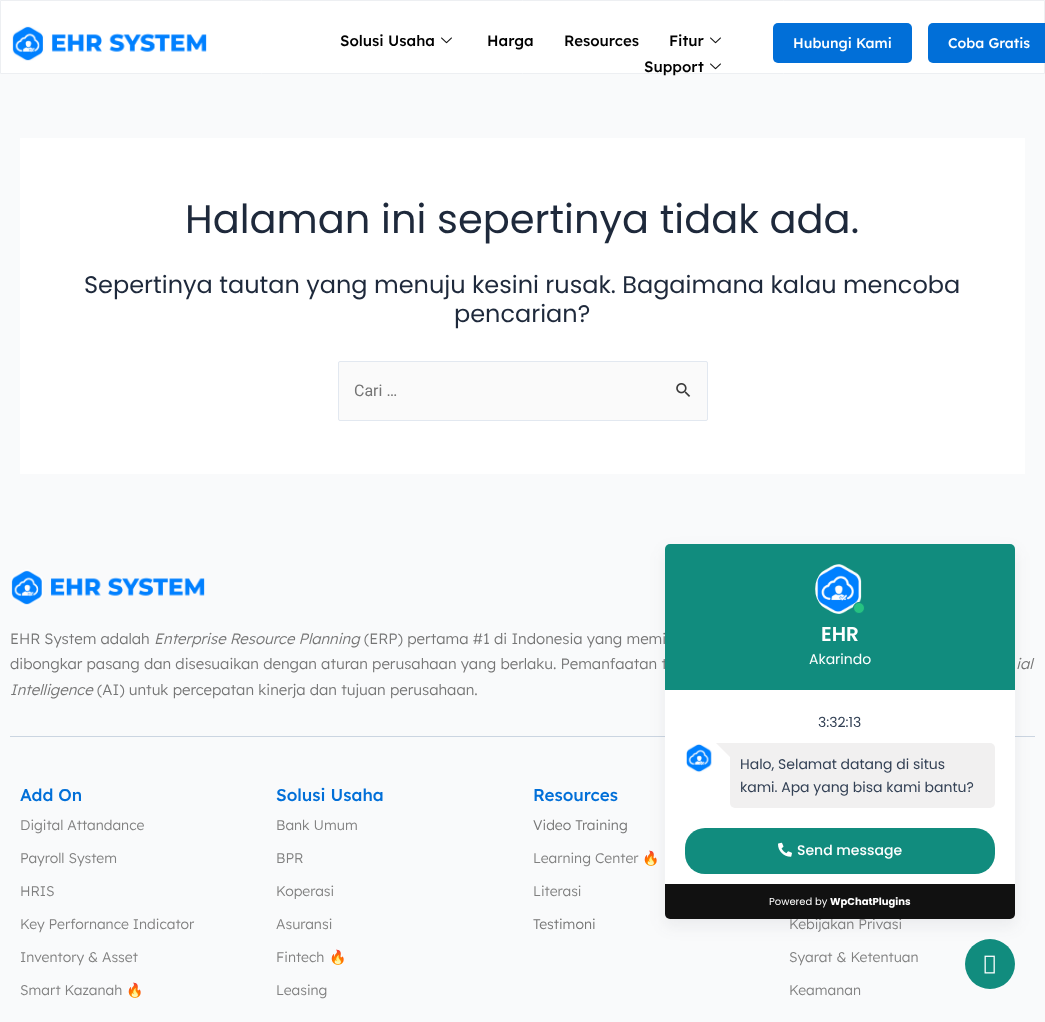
(async () => {
    const canvas = document.querySelector("canvas");
    canvas.width = 1045;
    canvas.height = 1022;
    const context = canvas.getContext("2d");
    context.miterLimit = 4;
    context.fontKerning = "normal";
    function write(s, x, y, font, color) {
        context.font = font;
        context.fillStyle = color;
        context.fillText(s, x, y);
    }
    function block(x, y, w, h, color) {
        context.fillStyle = color;
        context.fillRect(x, y, w, h);
    }
    function card(x, y, w, h, r, color) {
        context.fillStyle = color;
        context.beginPath();
        context.roundRect(x, y, w, h, r);
        context.fill();
    }
    async function photo(src, x, y, w, h) {
        const img = new Image();
        img.src = src;
        await img.decode();
        context.drawImage(img, x, y, w, h);
    }

    block(0, 0, 1045, 1022, "rgb(249, 250, 251)");
    context.fillStyle = "rgb(255, 255, 255)";
    context.beginPath();
    context.rect(0.5, 0.5, 1044, 73);
    context.fill();
    context.strokeStyle = "rgb(237, 239, 242)";
    context.stroke();
    await photo("media/1.png", 12, 26, 195, 35);
    write("Solusi Usaha", 340, 46, "500 15px Lexend", "rgb(0, 0, 0)");
    await photo("media/2.png", 441, 37, 11, 7);
    write("Harga", 487, 46, "500 15px Lexend", "rgb(0, 0, 0)");
    write("Resources", 564, 46, "500 15px Lexend", "rgb(0, 0, 0)");
    write("Fitur", 669, 46, "500 15px Lexend", "rgb(0, 0, 0)");
    await photo("media/2.png", 710, 37, 11, 7);
    write("Support", 644, 72, "500 15px Lexend", "rgb(0, 0, 0)");
    await photo("media/2.png", 710, 63, 11, 7);
    card(773, 23, 139, 40, 5, "rgb(1, 111, 216)");
    write("Hubungi Kami", 793, 48, "500 14px Lexend", "rgb(255, 255, 255)");
    card(928, 23, 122, 40, 5, "rgb(1, 111, 216)");
    write("Coba Gratis", 948, 48, "500 14px Lexend", "rgb(255, 255, 255)");
    block(20, 138, 1005, 336, "rgb(255, 255, 255)");
    write("Halaman ini sepertinya tidak ada.", 185, 233, "40px Poppins", "rgb(30, 41, 59)");
    write("Sepertinya tautan yang menuju kesini rusak. Bagaimana kalau mencoba", 84, 293, "24px Poppins", "rgb(30, 41, 59)");
    write("pencarian?", 454, 322, "24px Poppins", "rgb(30, 41, 59)");
    context.fillStyle = "rgb(250, 250, 250)";
    context.beginPath();
    context.roundRect(338.5, 361.5, 369, 59, 1.5);
    context.fill();
    context.strokeStyle = "rgb(226, 232, 240)";
    context.stroke();
    write("Cari …", 354, 396, "16px Roboto", "rgb(117, 117, 117)");
    await photo("media/3.png", 676, 383, 15, 14);
    await photo("media/4.png", 11, 569, 194, 37);
    write("EHR System adalah", 10, 644, "300 15px Lexend", "rgb(117, 117, 117)");
    write("Enterprise Resource Planning", 154, 644, "italic 300 15px Lexend", "rgb(117, 117, 117)");
    write("(ERP) pertama #1 di Indonesia yang memi", 364, 644, "300 15px Lexend", "rgb(117, 117, 117)");
    write("dibongkar pasang dan disesuaikan dengan aturan perusahaan yang berlaku. Pemanfaatan t", 10, 669, "300 15px Lexend", "rgb(117, 117, 117)");
    write("ial", 1016, 669, "italic 300 15px Lexend", "rgb(117, 117, 117)");
    write("Intelligence", 10, 695, "italic 300 15px Lexend", "rgb(117, 117, 117)");
    write("(AI) untuk percepatan kinerja dan tujuan perusahaan.", 97, 695, "300 15px Lexend", "rgb(117, 117, 117)");
    block(10, 736, 1025, 1, "rgb(203, 213, 225)");
    write("Add On", 20, 801, "500 17px Lexend", "rgb(1, 111, 216)");
    write("Digital Attandance", 20, 830, "300 14px Lexend", "rgb(128, 128, 128)");
    write("Payroll System", 20, 863, "300 14px Lexend", "rgb(128, 128, 128)");
    write("HRIS", 20, 896, "300 14px Lexend", "rgb(128, 128, 128)");
    write("Key Perfornance Indicator", 20, 929, "300 14px Lexend", "rgb(128, 128, 128)");
    write("Inventory & Asset", 20, 962, "300 14px Lexend", "rgb(128, 128, 128)");
    write("Smart Kazanah", 20, 995, "300 14px Lexend", "rgb(128, 128, 128)");
    write("🔥", 126, 995, "14px Noto Color Emoji", "rgb(128, 128, 128)");
    write("Solusi Usaha", 276, 801, "500 17px Lexend", "rgb(1, 111, 216)");
    write("Bank Umum", 276, 830, "300 14px Lexend", "rgb(128, 128, 128)");
    write("BPR", 276, 863, "300 14px Lexend", "rgb(128, 128, 128)");
    write("Koperasi", 276, 896, "300 14px Lexend", "rgb(128, 128, 128)");
    write("Asuransi", 276, 929, "300 14px Lexend", "rgb(128, 128, 128)");
    write("Fintech", 276, 962, "300 14px Lexend", "rgb(128, 128, 128)");
    write("🔥", 329, 962, "14px Noto Color Emoji", "rgb(128, 128, 128)");
    write("Leasing", 276, 995, "300 14px Lexend", "rgb(128, 128, 128)");
    write("Resources", 533, 801, "500 17px Lexend", "rgb(1, 111, 216)");
    write("Video Training", 533, 830, "300 14px Lexend", "rgb(117, 117, 117)");
    write("Learning Center", 533, 863, "300 14px Lexend", "rgb(128, 128, 128)");
    write("🔥", 642, 863, "14px Noto Color Emoji", "rgb(128, 128, 128)");
    write("Literasi", 533, 896, "300 14px Lexend", "rgb(128, 128, 128)");
    write("Testimoni", 533, 929, "300 14px Lexend", "rgb(117, 117, 117)");
    write("Kebijakan Privasi", 789, 929, "300 14px Lexend", "rgb(128, 128, 128)");
    write("Syarat & Ketentuan", 789, 962, "300 14px Lexend", "rgb(128, 128, 128)");
    write("Keamanan", 789, 995, "300 14px Lexend", "rgb(128, 128, 128)");
    context.fillStyle = "rgba(55, 62, 70, 0.07)";
    context.filter = "blur(7.5px)";
    context.beginPath();
    context.roundRect(664, 550, 352, 377, 6);
    context.fill();
    context.filter = "none";
    card(665, 544, 350, 375, 5, "rgb(255, 255, 255)");
    context.fillStyle = "rgb(17, 140, 126)";
    context.beginPath();
    context.roundRect(665, 544, 350, 146, [5, 5, 0, 0]);
    context.fill();
    await photo("media/5.png", 815, 564, 47, 50);
    context.fillStyle = "rgb(38, 194, 129)";
    context.beginPath();
    context.arc(859, 608, 5.5, 0, Math.PI * 2);
    context.fill();
    context.strokeStyle = "rgb(17, 140, 126)";
    context.stroke();
    write("EHR", 821, 641, "600 20px Poppins", "rgb(255, 255, 255)");
    write("Akarindo", 809, 664, "14px Poppins", "rgb(255, 255, 255)");
    write("3:32:13", 818, 727, "14px Poppins", "rgb(51, 65, 85)");
    await photo("media/6.png", 686, 744, 26, 29);
    context.fillStyle = "rgb(241, 240, 240)";
    context.beginPath();
    context.roundRect(730, 743, 265, 65, [0, 5, 5, 5]);
    context.fill();
    context.beginPath();
    context.moveTo(731, 743);
    context.lineTo(731, 758);
    context.lineTo(716, 743);
    context.closePath();
    context.fill();
    write("Halo, Selamat datang di situs", 740, 769, "14px Poppins", "rgb(51, 65, 85)");
    write("kami. Apa yang bisa kami bantu?", 740, 792, "14px Poppins", "rgb(51, 65, 85)");
    card(685, 828, 310, 46, 20, "rgb(17, 140, 126)");
    await photo("media/7.png", 778, 842, 14, 15);
    write("Send message", 797, 855, "500 14px Poppins", "rgb(255, 255, 255)");
    context.fillStyle = "rgb(17, 17, 17)";
    context.beginPath();
    context.roundRect(665, 884, 350, 35, [0, 0, 5, 5]);
    context.fill();
    write("Powered by", 769, 905, "10px Poppins", "rgb(255, 255, 255)");
    write("WpChatPlugins", 830, 905, "bold 10px Poppins", "rgb(255, 255, 255)");
    context.fillStyle = "rgb(17, 140, 126)";
    context.beginPath();
    context.arc(990, 964, 25, 0, Math.PI * 2);
    context.fill();
    await photo("media/8.png", 984, 955, 11, 19);
})();
